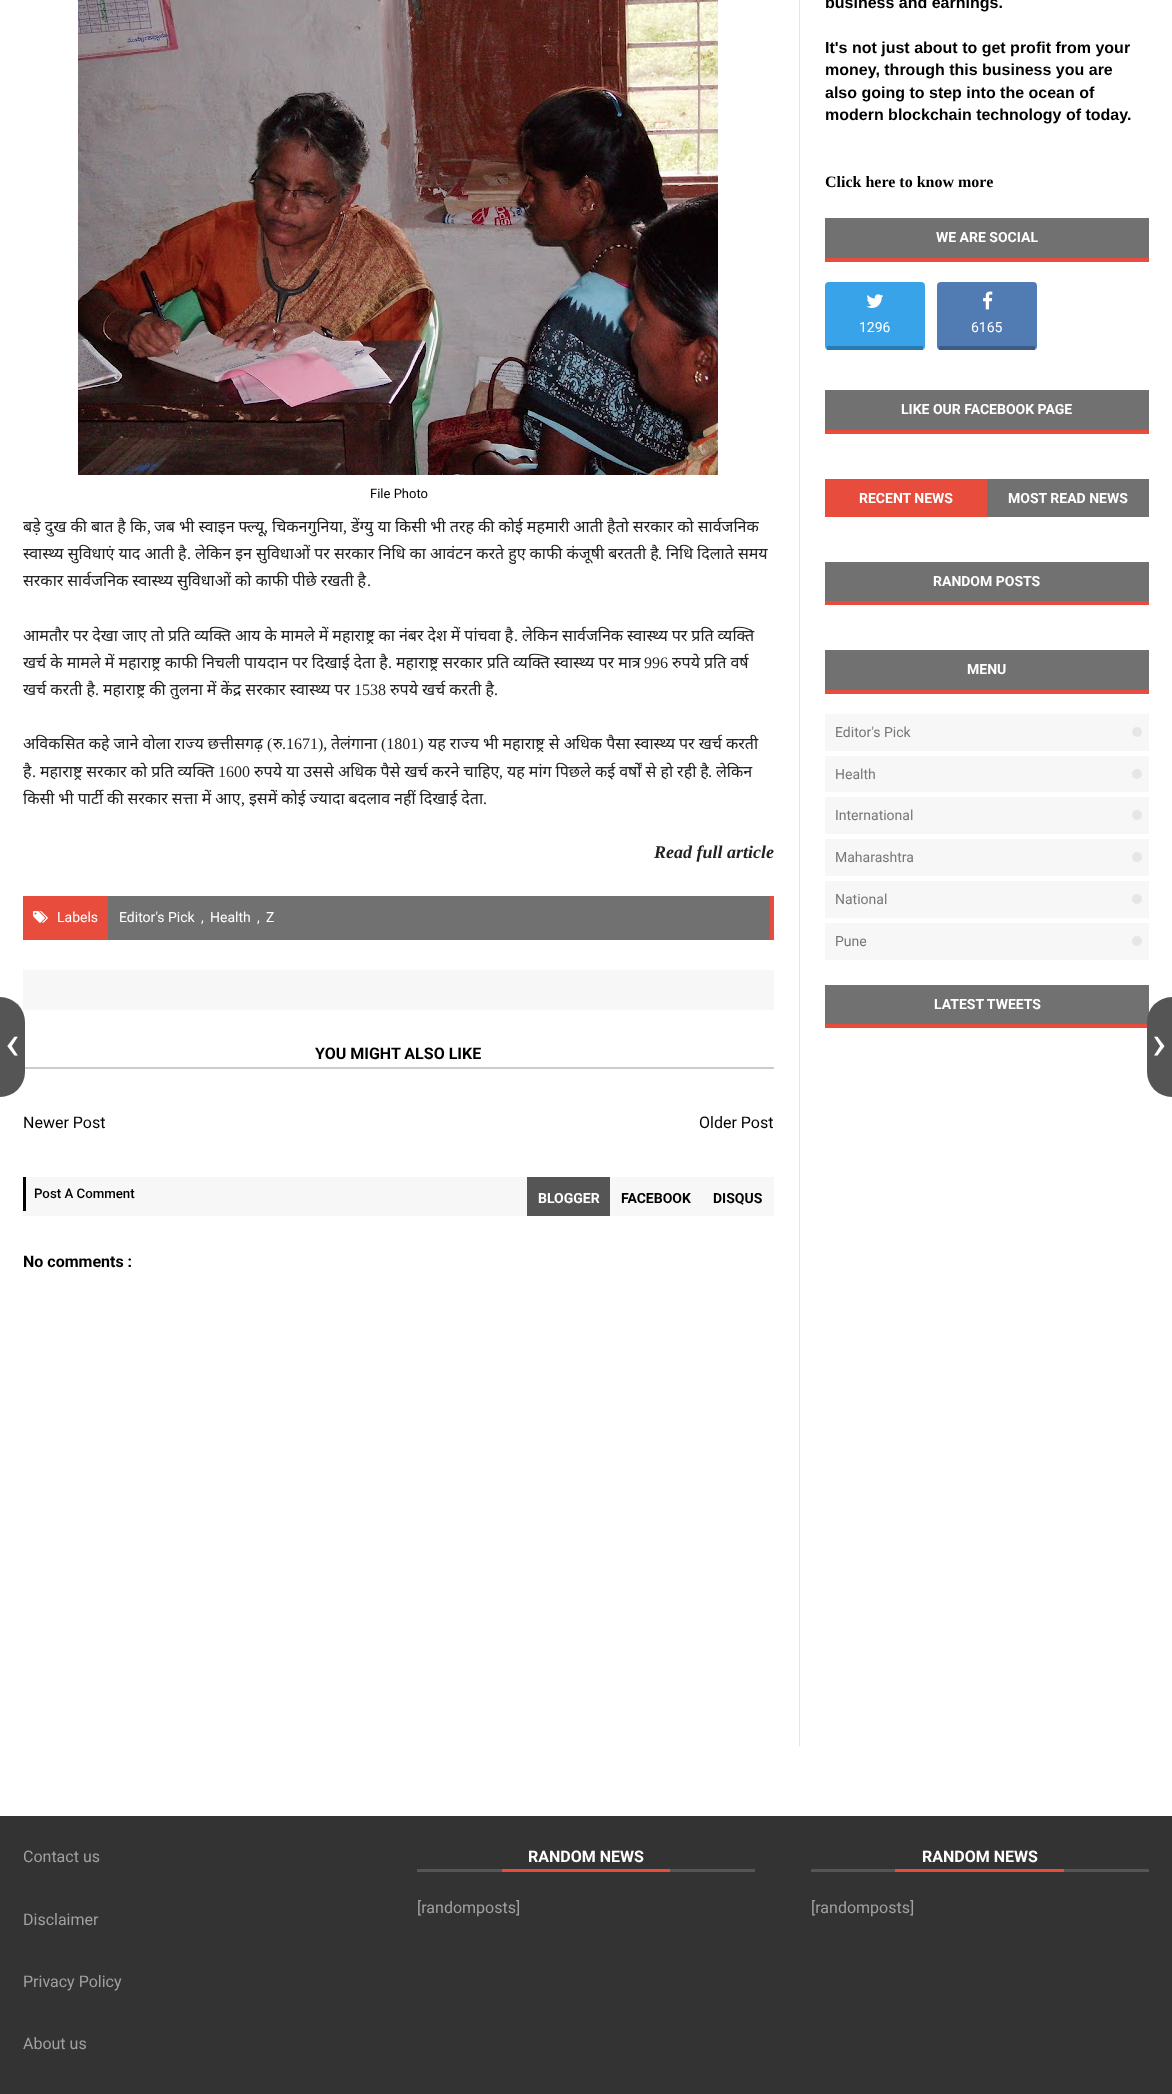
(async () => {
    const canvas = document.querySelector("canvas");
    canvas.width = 1172;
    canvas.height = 2094;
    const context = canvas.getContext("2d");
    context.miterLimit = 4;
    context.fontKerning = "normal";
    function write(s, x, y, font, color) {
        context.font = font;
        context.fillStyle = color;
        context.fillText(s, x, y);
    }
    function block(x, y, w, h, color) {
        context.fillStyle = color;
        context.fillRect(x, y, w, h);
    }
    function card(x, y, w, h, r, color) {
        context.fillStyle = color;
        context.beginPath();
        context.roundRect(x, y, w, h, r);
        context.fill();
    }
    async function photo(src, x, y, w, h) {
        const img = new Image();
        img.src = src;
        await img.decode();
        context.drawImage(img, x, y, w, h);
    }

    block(0, 0, 1172, 2094, "rgb(255, 255, 255)");
    block(799, 0, 1, 1746, "rgb(230, 230, 230)");
    write("business and earnings.", 825, 8, "bold 16px Liberation Sans", "rgb(0, 0, 0)");
    write("It's not just about to get profit from your", 825, 53, "bold 16px Liberation Sans", "rgb(0, 0, 0)");
    write("money, through this business you are", 825, 75, "bold 16px Liberation Sans", "rgb(0, 0, 0)");
    write("also going to step into the ocean of", 825, 98, "bold 16px Liberation Sans", "rgb(0, 0, 0)");
    write("modern blockchain technology of today.", 825, 120, "bold 16px Liberation Sans", "rgb(0, 0, 0)");
    write("Click here to know more", 825, 187, "bold 16px Liberation Serif", "rgb(0, 0, 0)");
    block(825, 218, 324, 40, "rgb(113, 113, 113)");
    block(825, 258, 324, 4, "rgb(231, 76, 60)");
    write("WE ARE SOCIAL", 936, 242, "bold 14px Roboto", "rgb(255, 255, 255)");
    card(825, 282, 100, 68, 4, "rgb(56, 163, 233)");
    block(827, 346, 96, 4, "rgb(41, 123, 176)");
    await photo("media/1.png", 866, 294, 18, 14);
    write("1296", 859, 332, "14px Roboto", "rgb(255, 255, 255)");
    card(937, 282, 100, 68, 4, "rgb(80, 124, 179)");
    block(939, 346, 96, 4, "rgb(59, 92, 134)");
    await photo("media/2.png", 983, 291, 10, 19);
    write("6165", 971, 332, "14px Roboto", "rgb(255, 255, 255)");
    block(825, 390, 324, 40, "rgb(113, 113, 113)");
    block(825, 430, 324, 4, "rgb(231, 76, 60)");
    write("LIKE OUR FACEBOOK PAGE", 901, 414, "bold 14px Roboto", "rgb(255, 255, 255)");
    block(987, 479, 162, 38, "rgb(113, 113, 113)");
    block(825, 479, 162, 38, "rgb(231, 76, 60)");
    write("RECENT NEWS", 859, 503, "bold 14px Roboto", "rgb(255, 255, 255)");
    write("MOST READ NEWS", 1008, 503, "bold 14px Roboto", "rgb(255, 255, 255)");
    block(825, 562, 324, 39, "rgb(113, 113, 113)");
    block(825, 601, 324, 4, "rgb(231, 76, 60)");
    write("RANDOM POSTS", 933, 586, "bold 14px Roboto", "rgb(255, 255, 255)");
    block(825, 650, 324, 40, "rgb(113, 113, 113)");
    block(825, 690, 324, 4, "rgb(231, 76, 60)");
    write("MENU", 967, 674, "bold 14px Roboto", "rgb(255, 255, 255)");
    block(825, 714, 324, 37, "rgb(247, 247, 247)");
    write("Editor's Pick", 835, 737, "14px Roboto", "rgb(119, 119, 119)");
    context.fillStyle = "rgb(230, 230, 230)";
    context.beginPath();
    context.arc(1137, 732, 5, 0, Math.PI * 2);
    context.fill();
    block(825, 756, 324, 36, "rgb(247, 247, 247)");
    write("Health", 835, 779, "14px Roboto", "rgb(119, 119, 119)");
    context.fillStyle = "rgb(230, 230, 230)";
    context.beginPath();
    context.arc(1137, 774, 5, 0, Math.PI * 2);
    context.fill();
    block(825, 797, 324, 37, "rgb(247, 247, 247)");
    write("International", 835, 820, "14px Roboto", "rgb(119, 119, 119)");
    context.fillStyle = "rgb(230, 230, 230)";
    context.beginPath();
    context.arc(1137, 815, 5, 0, Math.PI * 2);
    context.fill();
    block(825, 839, 324, 37, "rgb(247, 247, 247)");
    write("Maharashtra", 835, 862, "14px Roboto", "rgb(119, 119, 119)");
    context.fillStyle = "rgb(230, 230, 230)";
    context.beginPath();
    context.arc(1137, 857, 5, 0, Math.PI * 2);
    context.fill();
    block(825, 881, 324, 37, "rgb(247, 247, 247)");
    write("National", 835, 904, "14px Roboto", "rgb(119, 119, 119)");
    context.fillStyle = "rgb(230, 230, 230)";
    context.beginPath();
    context.arc(1137, 899, 5, 0, Math.PI * 2);
    context.fill();
    block(825, 923, 324, 37, "rgb(247, 247, 247)");
    write("Pune", 835, 946, "14px Roboto", "rgb(119, 119, 119)");
    context.fillStyle = "rgb(230, 230, 230)";
    context.beginPath();
    context.arc(1137, 941, 5, 0, Math.PI * 2);
    context.fill();
    block(825, 985, 324, 39, "rgb(113, 113, 113)");
    block(825, 1024, 324, 4, "rgb(231, 76, 60)");
    write("LATEST TWEETS", 934, 1009, "bold 14px Roboto", "rgb(255, 255, 255)");
    await photo("media/3.png", 78, 0, 640, 475);
    write("File Photo", 370, 498, "13px Roboto", "rgb(0, 0, 0)");
    context.wordSpacing = "-0.1px";
    write("बड़े दुख की बात है कि", 23, 532, "16px Noto Sans", "rgb(34, 34, 34)");
    context.wordSpacing = "0px";
    write(",", 147, 532, "16px Liberation Serif", "rgb(34, 34, 34)");
    context.wordSpacing = "-0.1px";
    write("जब भी स्वाइन फ्ल्यू", 154, 532, "16px Noto Sans", "rgb(34, 34, 34)");
    context.wordSpacing = "0px";
    write(",", 264, 532, "16px Liberation Serif", "rgb(34, 34, 34)");
    write("चिकनगुनिया", 272, 532, "16px Noto Sans", "rgb(34, 34, 34)");
    write(",", 343, 532, "16px Liberation Serif", "rgb(34, 34, 34)");
    context.wordSpacing = "-0.1px";
    write("डेंग्यु या किसी भी तरह की कोई महमारी आती हैतो सरकार को सार्वजनिक", 351, 532, "16px Noto Sans", "rgb(34, 34, 34)");
    write("स्वास्थ्य सुविधाएं याद आती है", 23, 559, "16px Noto Sans", "rgb(34, 34, 34)");
    context.wordSpacing = "0px";
    write(".", 187, 559, "16px Liberation Serif", "rgb(34, 34, 34)");
    context.wordSpacing = "-0.1px";
    write("लेकिन इन सुविधाओं पर सरकार निधि का आवंटन करते हुए काफी कंजूषी बरतती है", 195, 559, "16px Noto Sans", "rgb(34, 34, 34)");
    write("निधि दिलाते समय", 666, 559, "16px Noto Sans", "rgb(34, 34, 34)");
    context.wordSpacing = "0px";
    write(".", 658, 559, "16px Liberation Serif", "rgb(34, 34, 34)");
    context.wordSpacing = "-0.2px";
    write("सरकार सार्वजनिक स्वास्थ्य सुविधाओं को काफी पीछे रखती है", 23, 586, "16px Noto Sans", "rgb(34, 34, 34)");
    context.wordSpacing = "0px";
    write(".", 367, 586, "16px Liberation Serif", "rgb(34, 34, 34)");
    context.wordSpacing = "-0.2px";
    write("आमतौर पर देखा जाए तो प्रति व्यक्ति आय के मामले में महाराष्ट्र का नंबर देश में पांचवा है", 23, 641, "16px Noto Sans", "rgb(34, 34, 34)");
    context.wordSpacing = "0px";
    write(".", 514, 641, "16px Liberation Serif", "rgb(34, 34, 34)");
    context.wordSpacing = "-0.2px";
    write("लेकिन सार्वजनिक स्वास्थ्य पर प्रति व्यक्ति", 522, 641, "16px Noto Sans", "rgb(34, 34, 34)");
    context.wordSpacing = "-0.1px";
    write("खर्च के मामले में महाराष्ट्र काफी निचली पायदान पर दिखाई देता है", 23, 668, "16px Noto Sans", "rgb(34, 34, 34)");
    context.wordSpacing = "0px";
    write(".", 388, 668, "16px Liberation Serif", "rgb(34, 34, 34)");
    context.wordSpacing = "-0.1px";
    write("महाराष्ट्र सरकार प्रति व्यक्ति स्वास्थ्य पर मात्र", 396, 668, "16px Noto Sans", "rgb(34, 34, 34)");
    context.wordSpacing = "0px";
    write("996", 644, 668, "16px Liberation Serif", "rgb(34, 34, 34)");
    context.wordSpacing = "-0.1px";
    write("रुपये प्रति वर्ष", 672, 668, "16px Noto Sans", "rgb(34, 34, 34)");
    write("खर्च करती है", 23, 695, "16px Noto Sans", "rgb(34, 34, 34)");
    context.wordSpacing = "0px";
    write(".", 95, 695, "16px Liberation Serif", "rgb(34, 34, 34)");
    context.wordSpacing = "-0.1px";
    write("महाराष्ट्र की तुलना में केंद्र सरकार स्वास्थ्य पर", 103, 695, "16px Noto Sans", "rgb(34, 34, 34)");
    context.wordSpacing = "0px";
    write("1538", 354, 695, "16px Liberation Serif", "rgb(34, 34, 34)");
    context.wordSpacing = "-0.1px";
    write("रुपये खर्च करती है", 390, 695, "16px Noto Sans", "rgb(34, 34, 34)");
    context.wordSpacing = "0px";
    write(".", 494, 695, "16px Liberation Serif", "rgb(34, 34, 34)");
    context.wordSpacing = "-0.1px";
    write("अविकसित कहे जाने वाेला राज्य छत्तीसगढ़", 23, 749, "16px Noto Sans", "rgb(34, 34, 34)");
    context.wordSpacing = "0px";
    write("(", 267, 749, "16px Liberation Serif", "rgb(34, 34, 34)");
    write("रु", 273, 749, "16px Noto Sans", "rgb(34, 34, 34)");
    write(".1671),", 282, 749, "16px Liberation Serif", "rgb(34, 34, 34)");
    write("तेलंगाना", 331, 749, "16px Noto Sans", "rgb(34, 34, 34)");
    write("(1801)", 381, 749, "16px Liberation Serif", "rgb(34, 34, 34)");
    context.wordSpacing = "-0.1px";
    write("यह राज्य भी महाराष्ट्र से अधिक पैसा स्वास्थ्य पर खर्च करती", 428, 749, "16px Noto Sans", "rgb(34, 34, 34)");
    context.wordSpacing = "0px";
    write("है", 23, 777, "16px Noto Sans", "rgb(34, 34, 34)");
    write(".", 32, 777, "16px Liberation Serif", "rgb(34, 34, 34)");
    context.wordSpacing = "-0.1px";
    write("महाराष्ट्र सरकार को प्रति व्यक्ति", 40, 777, "16px Noto Sans", "rgb(34, 34, 34)");
    context.wordSpacing = "0px";
    write("1600", 218, 777, "16px Liberation Serif", "rgb(34, 34, 34)");
    context.wordSpacing = "-0.1px";
    write("रुपये या उससे अधिक पैसे खर्च करने चाहिए", 254, 777, "16px Noto Sans", "rgb(34, 34, 34)");
    context.wordSpacing = "0px";
    write(",", 499, 777, "16px Liberation Serif", "rgb(34, 34, 34)");
    context.wordSpacing = "-0.1px";
    write("यह मांग पिछले कई वर्षों से हो रही है", 507, 777, "16px Noto Sans", "rgb(34, 34, 34)");
    context.wordSpacing = "0px";
    write(".", 708, 777, "16px Liberation Serif", "rgb(34, 34, 34)");
    write("लेकिन", 716, 777, "16px Noto Sans", "rgb(34, 34, 34)");
    context.wordSpacing = "-0.2px";
    write("किसी भी पार्टी की सरकार सत्ता में आए", 23, 804, "16px Noto Sans", "rgb(34, 34, 34)");
    context.wordSpacing = "0px";
    write(",", 241, 804, "16px Liberation Serif", "rgb(34, 34, 34)");
    context.wordSpacing = "-0.2px";
    write("इसमें कोई ज्यादा बदलाव नहीं दिखाई देता", 249, 804, "16px Noto Sans", "rgb(34, 34, 34)");
    context.wordSpacing = "0px";
    write(".", 483, 804, "16px Liberation Serif", "rgb(34, 34, 34)");
    write("Read full article", 654, 858, "italic bold 18px Liberation Serif", "rgb(34, 34, 34)");
    block(108, 896, 662, 44, "rgb(113, 113, 113)");
    block(770, 896, 4, 44, "rgb(231, 76, 60)");
    block(23, 896, 85, 44, "rgb(231, 76, 60)");
    await photo("media/4.png", 33, 911, 15, 12);
    write("Labels", 57, 922, "14px Roboto", "rgb(255, 255, 255)");
    write("Editor's Pick", 119, 922, "14px Roboto", "rgb(255, 255, 255)");
    write(",", 201, 922, "14px Roboto", "rgb(255, 255, 255)");
    write("Health", 210, 922, "14px Roboto", "rgb(255, 255, 255)");
    write(",", 257, 922, "14px Roboto", "rgb(255, 255, 255)");
    write("Z", 266, 922, "14px Roboto", "rgb(255, 255, 255)");
    block(23, 970, 751, 40, "rgb(247, 247, 247)");
    block(23, 1067, 751, 2, "rgb(204, 204, 204)");
    context.fillStyle = "rgb(85, 85, 85)";
    context.beginPath();
    context.roundRect(0, 997, 25, 100, [0, 25, 25, 0]);
    context.fill();
    write("‹", 5, 1059, "48px Roboto", "rgb(255, 255, 255)");
    context.fillStyle = "rgb(85, 85, 85)";
    context.beginPath();
    context.roundRect(1147, 997, 25, 100, [25, 0, 0, 25]);
    context.fill();
    write("›", 1152, 1059, "48px Roboto", "rgb(255, 255, 255)");
    write("YOU MIGHT ALSO LIKE", 315, 1059, "bold 16px Roboto", "rgb(0, 0, 0)");
    write("Newer Post", 23, 1128, "16px Roboto", "rgb(0, 0, 0)");
    write("Older Post", 699, 1128, "16px Roboto", "rgb(0, 0, 0)");
    block(23, 1177, 751, 39, "rgb(247, 247, 247)");
    block(23, 1177, 3, 34, "rgb(0, 0, 0)");
    write("Post A Comment", 34, 1198, "500 13.25px Roboto", "rgb(0, 0, 0)");
    block(527, 1177, 83, 39, "rgb(85, 85, 85)");
    write("BLOGGER", 538, 1203, "bold 14px Roboto", "rgb(255, 255, 255)");
    write("FACEBOOK", 621, 1203, "bold 14px Roboto", "rgb(0, 0, 0)");
    write("DISQUS", 713, 1203, "bold 14px Roboto", "rgb(0, 0, 0)");
    write("No comments :", 23, 1267, "bold 16px Roboto", "rgb(0, 0, 0)");
    block(0, 1816, 1172, 278, "rgb(51, 51, 51)");
    write("Contact us", 23, 1862, "16px Roboto", "rgb(161, 161, 161)");
    write("Disclaimer", 23, 1925, "16px Roboto", "rgb(161, 161, 161)");
    write("Privacy Policy", 23, 1987, "16px Roboto", "rgb(161, 161, 161)");
    write("About us", 23, 2049, "16px Roboto", "rgb(161, 161, 161)");
    block(417, 1869, 338, 3, "rgb(85, 85, 85)");
    write("RANDOM NEWS", 528, 1862, "bold 16px Roboto", "rgb(255, 255, 255)");
    block(502, 1869, 168, 3, "rgb(231, 76, 60)");
    write("[randomposts]", 417, 1913, "16px Roboto", "rgb(161, 161, 161)");
    block(811, 1869, 338, 3, "rgb(85, 85, 85)");
    write("RANDOM NEWS", 922, 1862, "bold 16px Roboto", "rgb(255, 255, 255)");
    block(895, 1869, 169, 3, "rgb(231, 76, 60)");
    write("[randomposts]", 811, 1913, "16px Roboto", "rgb(161, 161, 161)");
})();
